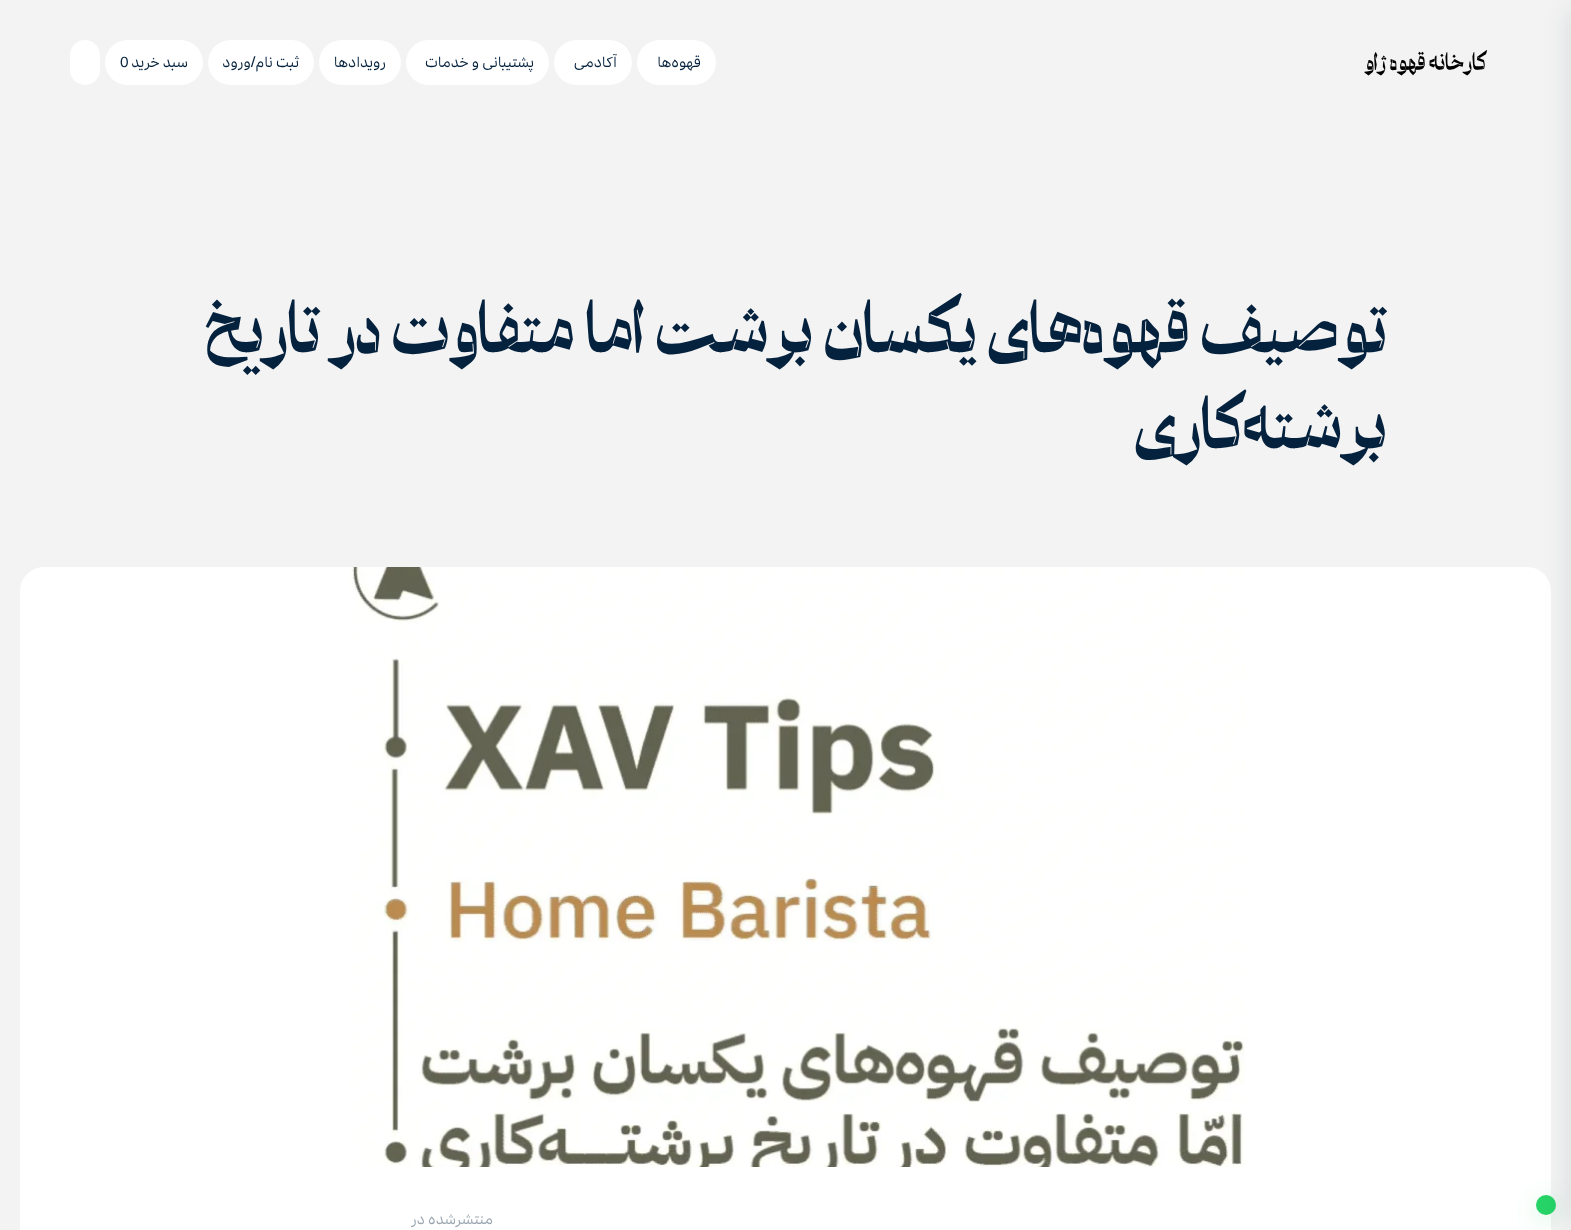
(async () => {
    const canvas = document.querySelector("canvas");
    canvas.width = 1571;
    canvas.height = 1230;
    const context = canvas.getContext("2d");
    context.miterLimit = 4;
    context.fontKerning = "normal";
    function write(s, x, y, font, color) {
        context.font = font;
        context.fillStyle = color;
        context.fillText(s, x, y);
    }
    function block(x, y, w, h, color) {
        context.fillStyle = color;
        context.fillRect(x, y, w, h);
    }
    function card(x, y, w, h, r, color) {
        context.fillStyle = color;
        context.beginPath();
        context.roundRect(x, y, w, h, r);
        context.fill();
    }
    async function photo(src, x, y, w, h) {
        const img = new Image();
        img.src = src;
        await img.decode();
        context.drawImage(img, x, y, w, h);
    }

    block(0, 0, 1571, 1230, "rgb(243, 243, 243)");
    card(20, 567, 1531, 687, 24, "rgb(255, 255, 255)");
    context.fillStyle = "rgba(37, 211, 102, 0.7)";
    context.filter = "blur(13.5px)";
    context.beginPath();
    context.roundRect(1540, 1204, 12, 12, 6);
    context.fill();
    context.filter = "none";
    context.fillStyle = "rgb(37, 211, 102)";
    context.beginPath();
    context.arc(1546, 1205, 10, 0, Math.PI * 2);
    context.fill();
    context.fillStyle = "rgba(4, 33, 61, 0.1)";
    context.filter = "blur(12.5px)";
    context.beginPath();
    context.roundRect(1568, 7, 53, 1216, 12);
    context.fill();
    context.filter = "none";
    context.direction = "rtl";
    write("کارخانه قهوه ژاو", 1486, 69, "bold 32px 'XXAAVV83'", "rgb(0, 0, 0)");
    card(637, 40, 79, 45, 22.5, "rgb(255, 255, 255)");
    write("قهوه‌ها", 701, 67, "14.5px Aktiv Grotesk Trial", "rgb(4, 33, 61)");
    card(554, 40, 78, 45, 22.5, "rgb(255, 255, 255)");
    write("آکادمی", 617, 67, "14.5px Aktiv Grotesk Trial", "rgb(4, 33, 61)");
    card(406, 40, 143, 45, 22.5, "rgb(255, 255, 255)");
    write("پشتیبانی و خدمات", 534, 67, "14.5px Aktiv Grotesk Trial", "rgb(4, 33, 61)");
    card(319, 40, 82, 45, 22.5, "rgb(255, 255, 255)");
    write("رویدادها", 386, 67, "14.5px Aktiv Grotesk Trial", "rgb(4, 33, 61)");
    card(208, 40, 106, 45, 22.5, "rgb(255, 255, 255)");
    write("ثبت نام/ورود", 299, 67, "14.5px Aktiv Grotesk Trial", "rgb(4, 33, 61)");
    card(105, 40, 98, 45, 22.5, "rgb(255, 255, 255)");
    write("سبد خرید", 188, 67, "14.5px Aktiv Grotesk Trial", "rgb(4, 33, 61)");
    context.direction = "ltr";
    write("0", 120, 67, "14.5px Aktiv Grotesk Trial", "rgb(4, 33, 61)");
    card(70, 40, 30, 45, 15, "rgb(255, 255, 255)");
    context.direction = "rtl";
    write("توصیف قهوه‌های یکسان برشت اما متفاوت در تاریخ", 1386, 350, "bold 96px 'XXAAVV83'", "rgb(4, 33, 61)");
    write("برشته‌کاری", 1386, 446, "bold 96px 'XXAAVV83'", "rgb(4, 33, 61)");
    await photo("media/1.png", 350, 567, 895, 600);
    write("منتشرشده در", 493, 1224, "14.5px Aktiv Grotesk Trial", "rgb(155, 166, 177)");
})();
